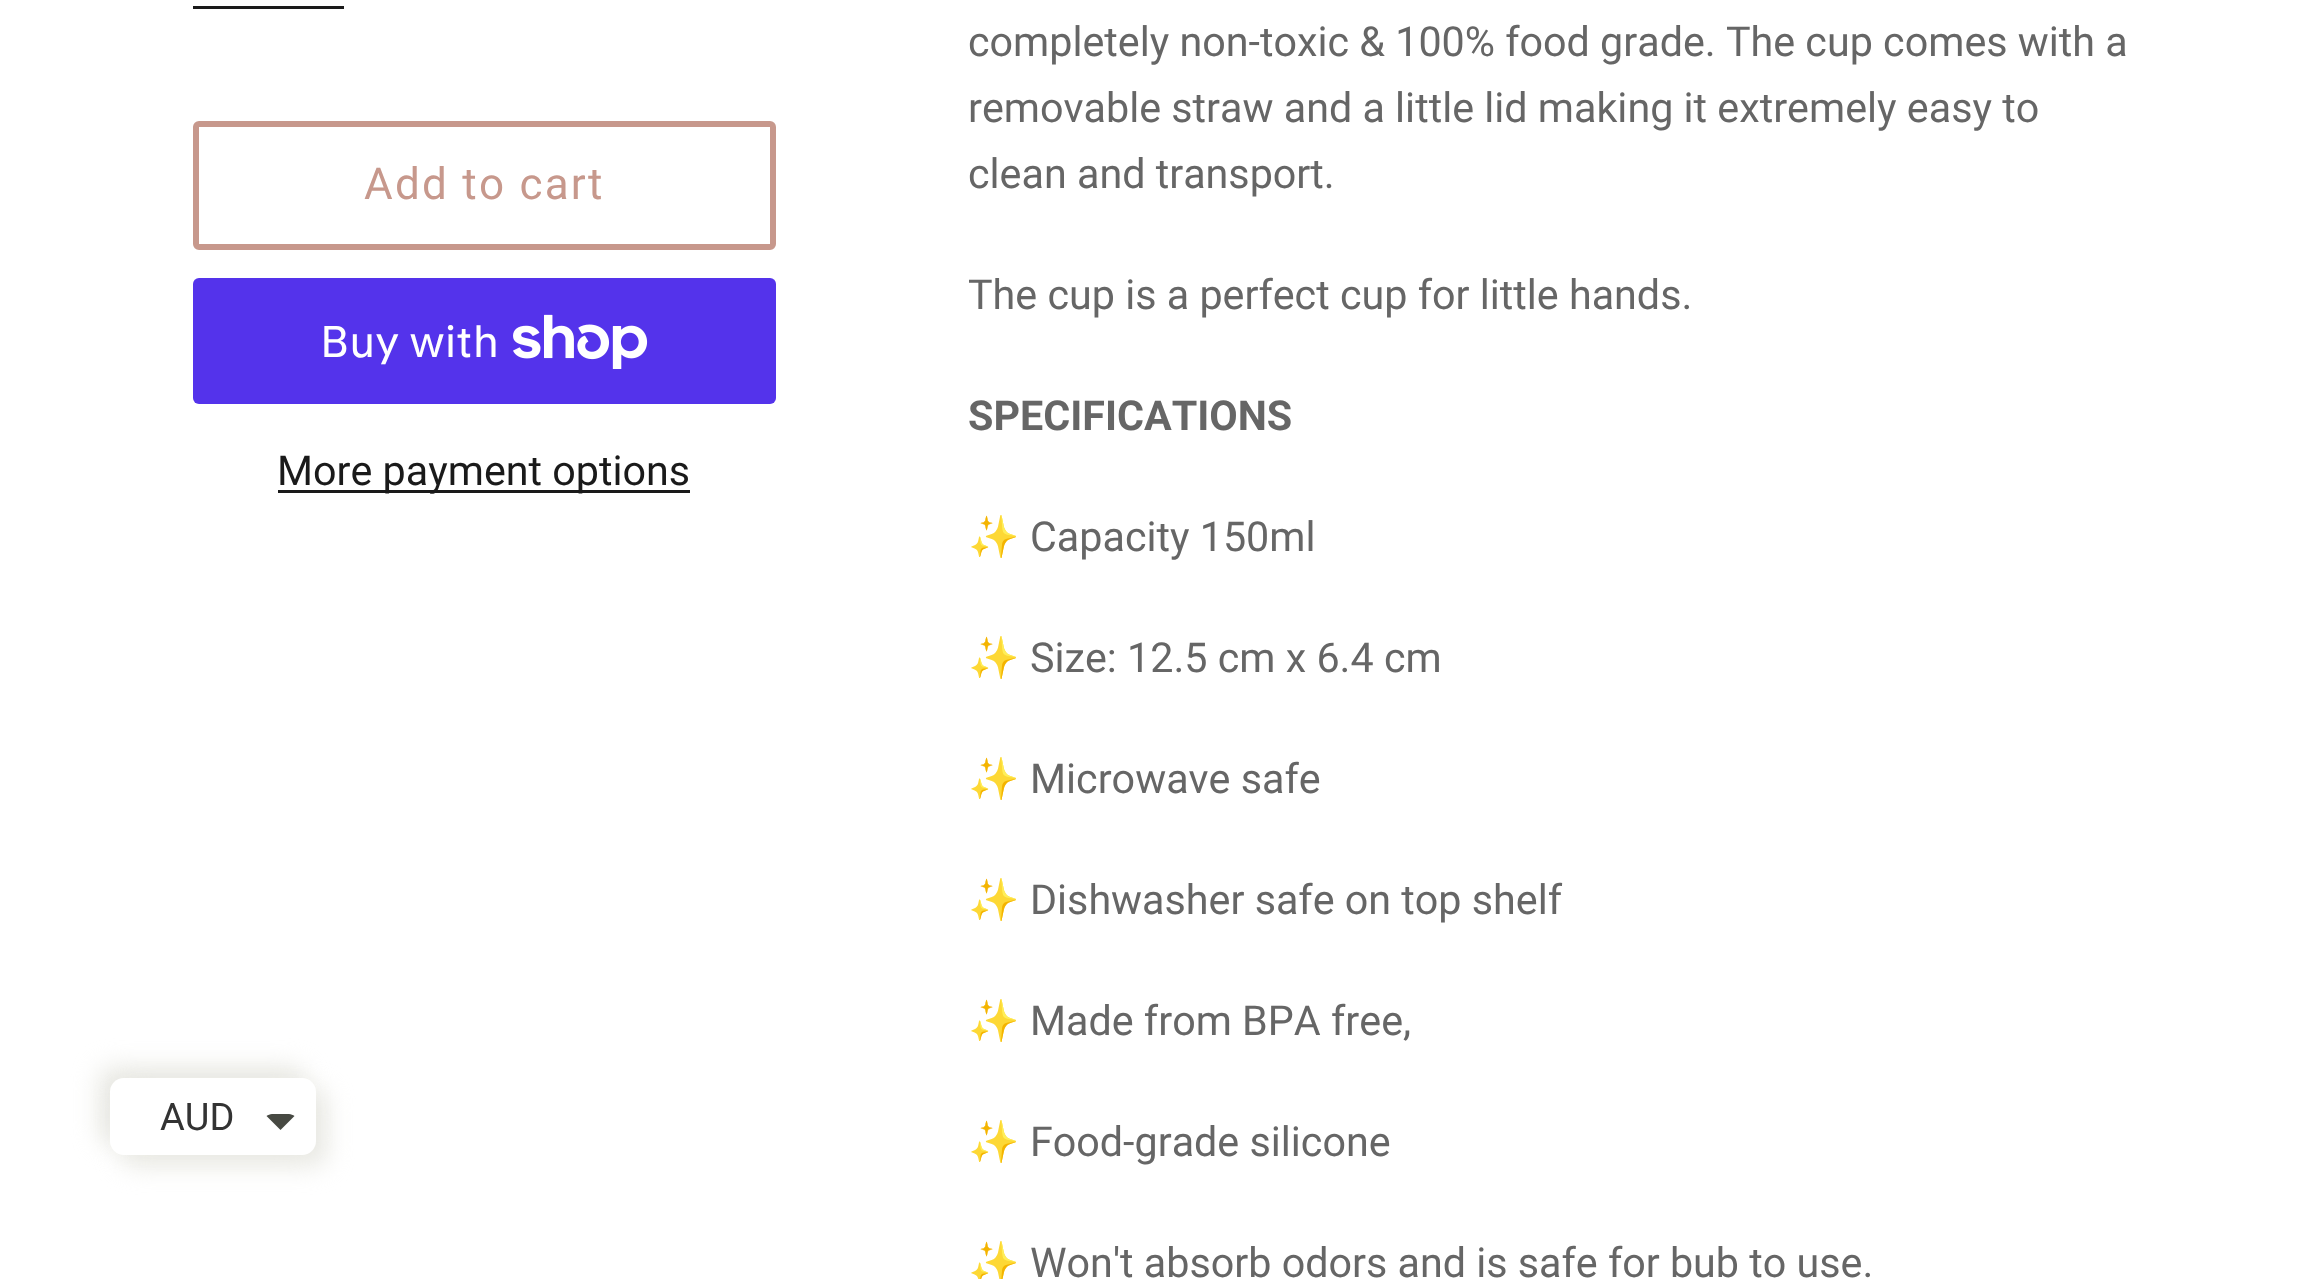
(async () => {
    const canvas = document.querySelector("canvas");
    canvas.width = 2323;
    canvas.height = 1279;
    const context = canvas.getContext("2d");
    context.miterLimit = 4;
    context.fontKerning = "none";
    function write(s, x, y, font, color) {
        context.font = font;
        context.fillStyle = color;
        context.fillText(s, x, y);
    }
    function block(x, y, w, h, color) {
        context.fillStyle = color;
        context.fillRect(x, y, w, h);
    }
    function card(x, y, w, h, r, color) {
        context.fillStyle = color;
        context.beginPath();
        context.roundRect(x, y, w, h, r);
        context.fill();
    }
    async function photo(src, x, y, w, h) {
        const img = new Image();
        img.src = src;
        await img.decode();
        context.drawImage(img, x, y, w, h);
    }

    block(0, 0, 2323, 1279, "rgb(255, 255, 255)");
    context.fillStyle = "rgb(232, 232, 226)";
    context.filter = "blur(12.5px)";
    context.beginPath();
    context.roundRect(99, 1067, 206, 77, 14);
    context.fill();
    context.filter = "none";
    context.filter = "blur(12.5px)";
    context.beginPath();
    context.roundRect(121, 1089, 206, 77, 14);
    context.fill();
    context.filter = "none";
    card(110, 1078, 206, 77, 14, "rgb(255, 255, 255)");
    write("AUD", 160, 1130, "38px Roboto", "rgb(51, 51, 51)");
    context.fillStyle = "rgb(71, 73, 66)";
    context.beginPath();
    context.moveTo(272, 1114);
    context.lineTo(289, 1114);
    context.bezierCurveTo(291, 1114, 293, 1115, 294.5, 1116);
    context.lineTo(280.5, 1130);
    context.lineTo(266.5, 1116);
    context.bezierCurveTo(268, 1115, 270, 1114, 272, 1114);
    context.closePath();
    context.fill();
    block(193, 6, 151, 3, "rgb(26, 26, 26)");
    context.beginPath();
    context.roundRect(196, 124, 577, 123, 3);
    context.strokeStyle = "rgb(199, 152, 140)";
    context.lineWidth = 6;
    context.stroke();
    context.letterSpacing = "2.25px";
    write("Add to cart", 364, 199, "44px Roboto", "rgb(199, 152, 140)");
    card(193, 278, 583, 126, 6, "rgb(84, 51, 235)");
    context.letterSpacing = "0px";
    write("Buy with", 320, 357, "44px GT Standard", "rgb(255, 255, 255)");
    await photo("media/1.png", 513, 314, 135, 55);
    block(278, 490, 412, 3, "rgb(26, 26, 26)");
    write("More payment options", 277, 485, "41.25px Roboto", "rgb(26, 26, 26)");
    write("completely non-toxic & 100% food grade. The cup comes with a", 968, 56, "41.25px Roboto", "rgb(102, 102, 102)");
    write("removable straw and a little lid making it extremely easy to", 968, 122, "41.25px Roboto", "rgb(102, 102, 102)");
    write("clean and transport.", 968, 188, "41.25px Roboto", "rgb(102, 102, 102)");
    write("The cup is a perfect cup for little hands.", 968, 309, "41.25px Roboto", "rgb(102, 102, 102)");
    write("SPECIFICATIONS", 968, 430, "bold 41.25px Roboto", "rgb(102, 102, 102)");
    write("✨", 968, 551, "41.25px Noto Color Emoji", "rgb(102, 102, 102)");
    write("Capacity 150ml", 1030, 551, "41.25px Roboto", "rgb(102, 102, 102)");
    write("✨", 968, 672, "41.25px Noto Color Emoji", "rgb(102, 102, 102)");
    write("Size: 12.5 cm x 6.4 cm", 1030, 672, "41.25px Roboto", "rgb(102, 102, 102)");
    write("✨", 968, 793, "41.25px Noto Color Emoji", "rgb(102, 102, 102)");
    write("Microwave safe", 1030, 793, "41.25px Roboto", "rgb(102, 102, 102)");
    write("✨", 968, 914, "41.25px Noto Color Emoji", "rgb(102, 102, 102)");
    write("Dishwasher safe on top shelf", 1030, 914, "41.25px Roboto", "rgb(102, 102, 102)");
    write("✨", 968, 1035, "41.25px Noto Color Emoji", "rgb(102, 102, 102)");
    write("Made from BPA free,", 1030, 1035, "41.25px Roboto", "rgb(102, 102, 102)");
    write("✨", 968, 1156, "41.25px Noto Color Emoji", "rgb(102, 102, 102)");
    write("Food-grade silicone", 1030, 1156, "41.25px Roboto", "rgb(102, 102, 102)");
    write("✨", 968, 1277, "41.25px Noto Color Emoji", "rgb(102, 102, 102)");
    write("Won't absorb odors and is safe for bub to use.", 1030, 1277, "41.25px Roboto", "rgb(102, 102, 102)");
})();
